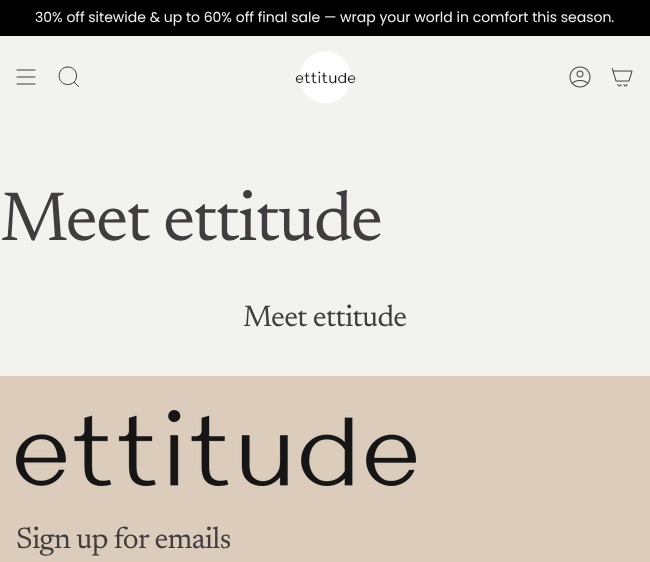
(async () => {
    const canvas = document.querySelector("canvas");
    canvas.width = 650;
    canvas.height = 562;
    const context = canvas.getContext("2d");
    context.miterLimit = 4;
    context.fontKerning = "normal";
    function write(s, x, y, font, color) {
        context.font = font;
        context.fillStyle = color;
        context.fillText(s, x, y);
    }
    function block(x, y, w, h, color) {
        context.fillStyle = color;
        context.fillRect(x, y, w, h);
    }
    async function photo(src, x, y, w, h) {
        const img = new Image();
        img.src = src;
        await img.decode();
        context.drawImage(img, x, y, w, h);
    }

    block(0, 0, 650, 562, "rgb(242, 243, 239)");
    block(0, 0, 650, 36, "rgb(0, 0, 0)");
    write("30% off sitewide & up to 60% off final sale — wrap your world in comfort this season.", 35, 22, "14px Poppins", "rgb(242, 243, 239)");
    context.beginPath();
    context.moveTo(17, 70);
    context.lineTo(35, 70);
    context.moveTo(17, 77);
    context.lineTo(35, 77);
    context.moveTo(17, 84);
    context.lineTo(35, 84);
    context.strokeStyle = "rgb(63, 61, 61)";
    context.lineCap = "round";
    context.lineJoin = "round";
    context.stroke();
    context.beginPath();
    context.moveTo(68, 67);
    context.bezierCurveTo(79.5, 67, 79.5, 85, 67.5, 84.5);
    context.bezierCurveTo(56, 84, 56.5, 67, 68, 67);
    context.closePath();
    context.moveTo(74, 82);
    context.lineTo(79, 87);
    context.lineCap = "butt";
    context.lineJoin = "miter";
    context.stroke();
    await photo("media/1.png", 295, 51, 61, 52);
    await photo("media/2.png", 569, 66, 22, 22);
    await photo("media/3.png", 611, 68, 22, 19);
    context.letterSpacing = "-1.75px";
    write("Meet ettitude", 0, 240, "70px Newsreader", "rgb(63, 61, 61)");
    context.letterSpacing = "-0.75px";
    write("Meet ettitude", 243, 326, "30px Newsreader", "rgb(63, 61, 61)");
    block(0, 376, 650, 186, "rgb(219, 204, 188)");
    await photo("media/4.png", 16, 410, 400, 76);
    write("Sign up for emails", 16, 548, "30px Newsreader", "rgb(63, 61, 61)");
})();
